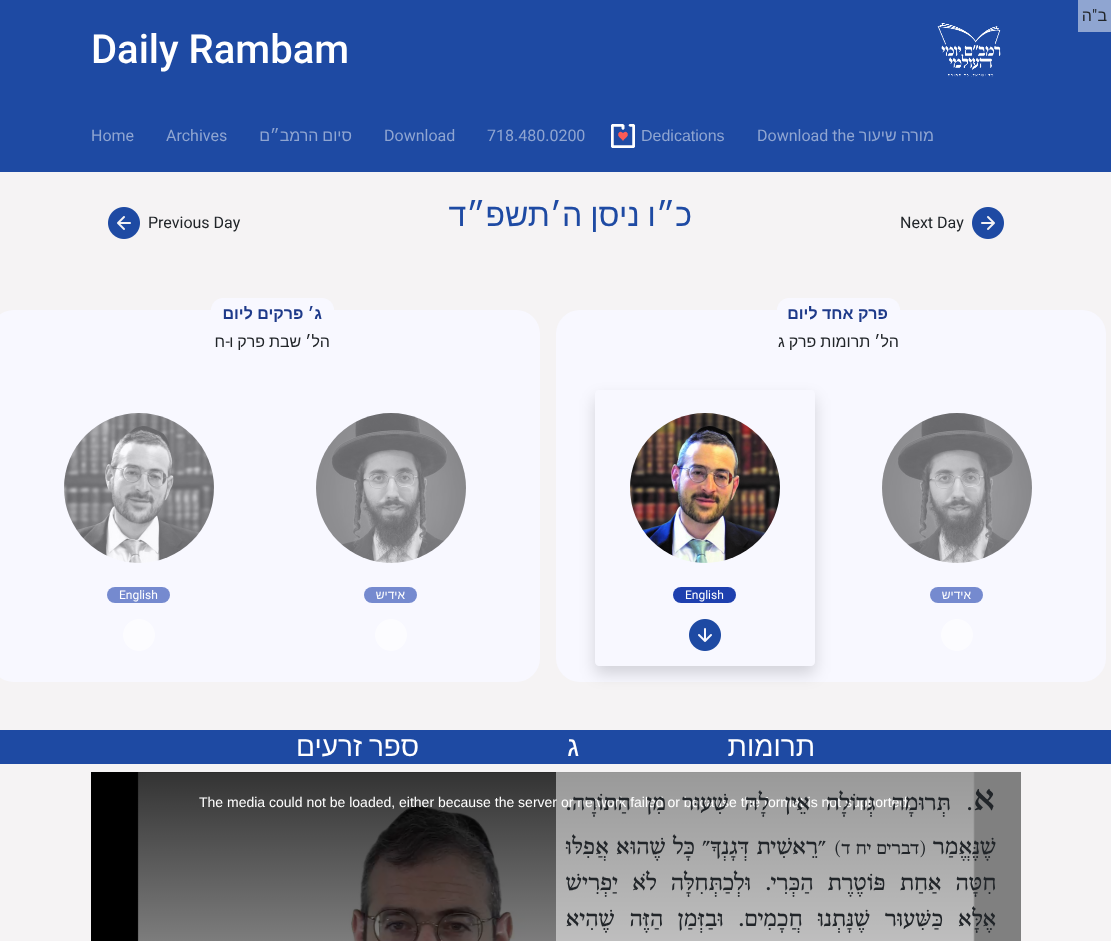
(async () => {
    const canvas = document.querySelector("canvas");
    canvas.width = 1111;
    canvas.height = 941;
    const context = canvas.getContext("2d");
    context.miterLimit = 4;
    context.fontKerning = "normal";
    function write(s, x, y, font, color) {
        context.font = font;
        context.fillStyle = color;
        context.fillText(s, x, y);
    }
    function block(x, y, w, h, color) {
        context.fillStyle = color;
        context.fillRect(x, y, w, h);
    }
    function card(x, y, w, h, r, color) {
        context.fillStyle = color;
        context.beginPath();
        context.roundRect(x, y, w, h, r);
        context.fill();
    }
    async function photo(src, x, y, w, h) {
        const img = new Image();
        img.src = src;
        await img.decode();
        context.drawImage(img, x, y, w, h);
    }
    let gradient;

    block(0, 0, 1111, 941, "rgb(245, 243, 244)");
    block(0, 0, 1111, 172, "rgb(30, 74, 163)");
    block(1078, 0, 33, 32, "rgb(143, 165, 209)");
    context.direction = "rtl";
    write("ב", 1107, 21, "16px Liberation Sans", "rgb(33, 37, 41)");
    write("\"", 1097, 21, "16px Roboto", "rgb(33, 37, 41)");
    write("ה", 1092, 21, "16px Liberation Sans", "rgb(33, 37, 41)");
    await photo("media/1.png", 937, 23, 64, 54);
    context.direction = "ltr";
    write("Daily Rambam", 91, 63, "500 40px Roboto", "rgb(255, 255, 255)");
    context.wordSpacing = "-0.5px";
    context.direction = "rtl";
    write("מורה שיעור", 934, 141, "16px Liberation Sans", "rgb(143, 165, 209)");
    context.wordSpacing = "0px";
    context.direction = "ltr";
    write("Download the", 757, 141, "16px Roboto", "rgb(143, 165, 209)");
    await photo("media/2.png", 611, 124, 24, 24);
    write("Dedications", 641, 141, "16px Liberation Sans", "rgb(143, 165, 209)");
    write("718.480.0200", 487, 141, "16px Roboto", "rgb(143, 165, 209)");
    write("Download", 384, 141, "16px Roboto", "rgb(143, 165, 209)");
    context.wordSpacing = "-0.5px";
    context.direction = "rtl";
    write("סיום הרמב״ם", 352, 141, "16px Liberation Sans", "rgb(143, 165, 209)");
    context.wordSpacing = "0px";
    context.direction = "ltr";
    write("Archives", 166, 141, "16px Roboto", "rgb(143, 165, 209)");
    write("Home", 91, 141, "16px Roboto", "rgb(143, 165, 209)");
    await photo("media/3.png", 972, 207, 32, 32);
    write("Next Day", 900, 228, "16px Roboto", "rgb(33, 37, 41)");
    context.wordSpacing = "-1px";
    context.direction = "rtl";
    write("כ״ו ניסן ה׳תשפ״ד", 692, 226, "32px Liberation Sans", "rgb(30, 74, 163)");
    context.wordSpacing = "0px";
    context.direction = "ltr";
    write("Previous Day", 148, 228, "16px Roboto", "rgb(33, 37, 41)");
    await photo("media/4.png", 108, 207, 32, 32);
    card(777, 298, 123, 32, 12, "rgb(248, 248, 255)");
    card(556, 310, 550, 372, 24, "rgb(248, 248, 255)");
    context.direction = "rtl";
    write("פרק אחד ליום", 888, 319, "bold 16px Liberation Sans", "rgb(30, 58, 138)");
    context.wordSpacing = "-0.5px";
    write("הל׳ תרומות פרק ג", 899, 347, "16px Liberation Sans", "rgb(33, 37, 41)");
    await photo("media/5.png", 882, 413, 150, 150);
    card(930, 587, 53, 16, 8, "rgb(117, 138, 207)");
    context.wordSpacing = "0px";
    write("אידיש", 971, 599, "12px Liberation Sans", "rgb(255, 255, 255)");
    await photo("media/6.png", 941, 619, 32, 32);
    context.save();
    context.beginPath();
    context.moveTo(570, 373);
    context.lineTo(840, 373);
    context.lineTo(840, 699);
    context.lineTo(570, 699);
    context.closePath();
    context.moveTo(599, 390);
    context.lineTo(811, 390);
    context.bezierCurveTo(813, 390, 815, 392, 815, 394);
    context.lineTo(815, 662);
    context.bezierCurveTo(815, 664, 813, 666, 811, 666);
    context.lineTo(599, 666);
    context.bezierCurveTo(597, 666, 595, 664, 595, 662);
    context.lineTo(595, 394);
    context.bezierCurveTo(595, 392, 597, 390, 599, 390);
    context.closePath();
    context.clip("evenodd");
    context.fillStyle = "rgba(0, 0, 0, 0.15)";
    context.filter = "blur(8px)";
    context.beginPath();
    context.roundRect(595, 398, 220, 276, 4);
    context.fill();
    context.filter = "none";
    context.restore();
    await photo("media/7.png", 630, 413, 150, 150);
    card(673, 587, 63, 16, 8, "rgb(30, 64, 175)");
    context.direction = "ltr";
    write("English", 685, 599, "12px Roboto", "rgb(255, 255, 255)");
    await photo("media/8.png", 689, 619, 32, 32);
    card(211, 298, 123, 32, 12, "rgb(248, 248, 255)");
    card(-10, 310, 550, 372, 24, "rgb(248, 248, 255)");
    context.direction = "rtl";
    write("ג׳ פרקים ליום", 322, 319, "bold 16px Liberation Sans", "rgb(30, 58, 138)");
    context.wordSpacing = "-0.5px";
    write("הל׳ שבת פרק ו", 330, 347, "16px Liberation Sans", "rgb(33, 37, 41)");
    context.wordSpacing = "0px";
    write("-", 230, 347, "16px Roboto", "rgb(33, 37, 41)");
    write("ח", 225, 347, "16px Liberation Sans", "rgb(33, 37, 41)");
    await photo("media/9.png", 316, 413, 150, 150);
    card(364, 587, 53, 16, 8, "rgb(117, 138, 207)");
    write("אידיש", 405, 599, "12px Liberation Sans", "rgb(255, 255, 255)");
    await photo("media/6.png", 375, 619, 32, 32);
    await photo("media/10.png", 64, 413, 150, 150);
    card(107, 587, 63, 16, 8, "rgb(117, 138, 207)");
    context.direction = "ltr";
    write("English", 119, 599, "12px Roboto", "rgb(255, 255, 255)");
    await photo("media/6.png", 123, 619, 32, 32);
    block(0, 730, 1111, 34, "rgb(30, 74, 163)");
    context.direction = "rtl";
    write("תרומות", 815, 756, "28px Liberation Sans", "rgb(255, 255, 255)");
    write("ג", 579, 756, "28px Liberation Sans", "rgb(255, 255, 255)");
    context.wordSpacing = "-1px";
    write("ספר זרעים", 419, 756, "28px Liberation Sans", "rgb(255, 255, 255)");
    block(91, 772, 930, 169, "rgb(0, 0, 0)");
    await photo("media/11.png", 137, 772, 838, 169);
    gradient = context.createLinearGradient(556, 772, 556, 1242);
    gradient.addColorStop(0, "rgba(0, 0, 0, 0.8)");
    gradient.addColorStop(1, "rgba(0, 0, 0, 0)");
    context.fillStyle = gradient;
    context.fillRect(137, 772, 838, 169);
    context.wordSpacing = "0px";
    context.direction = "ltr";
    write("The media could not be loaded, either because the server or network failed or because the format is not supported.", 199, 807, "14px Liberation Sans", "rgb(255, 255, 255)");
    block(556, 772, 465, 169, "rgba(255, 255, 255, 0.5)");
    context.direction = "rtl";
    write("א", 995, 810, "38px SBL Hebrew", "rgb(33, 37, 41)");
    context.wordSpacing = "9.5px";
    write(". תְּרוּמָה גְּדוֹלָה אֵין לָהּ שִׁעוּר מִן הַתּוֹרָה.", 973, 810, "24px SBL Hebrew", "rgb(33, 37, 41)");
    context.wordSpacing = "0px";
    write("שֶׁנֶּאֱמַר", 996, 854, "24px SBL Hebrew", "rgb(33, 37, 41)");
    write("(דברים יח ד)", 926, 854, "19px SBL Hebrew", "rgb(33, 37, 41)");
    context.wordSpacing = "0.5px";
    write("״רֵאשִׁית דְּגָנְךָ״ כָּל שֶׁהוּא אֲפִלּוּ", 826, 854, "24px SBL Hebrew", "rgb(33, 37, 41)");
    context.wordSpacing = "7.5px";
    write("חִטָּה אַחַת פּוֹטֶרֶת הַכְּרִי. וּלְכַתְּחִלָּה לֹא יַפְרִישׁ", 996, 890, "24px SBL Hebrew", "rgb(33, 37, 41)");
    context.wordSpacing = "8.25px";
    write("אֶלָּא כַּשִּׁעוּר שֶׁנָּתְנוּ חֲכָמִים. וּבַזְּמַן הַזֶּה שֶׁהִיא", 996, 926, "24px SBL Hebrew", "rgb(33, 37, 41)");
})();
